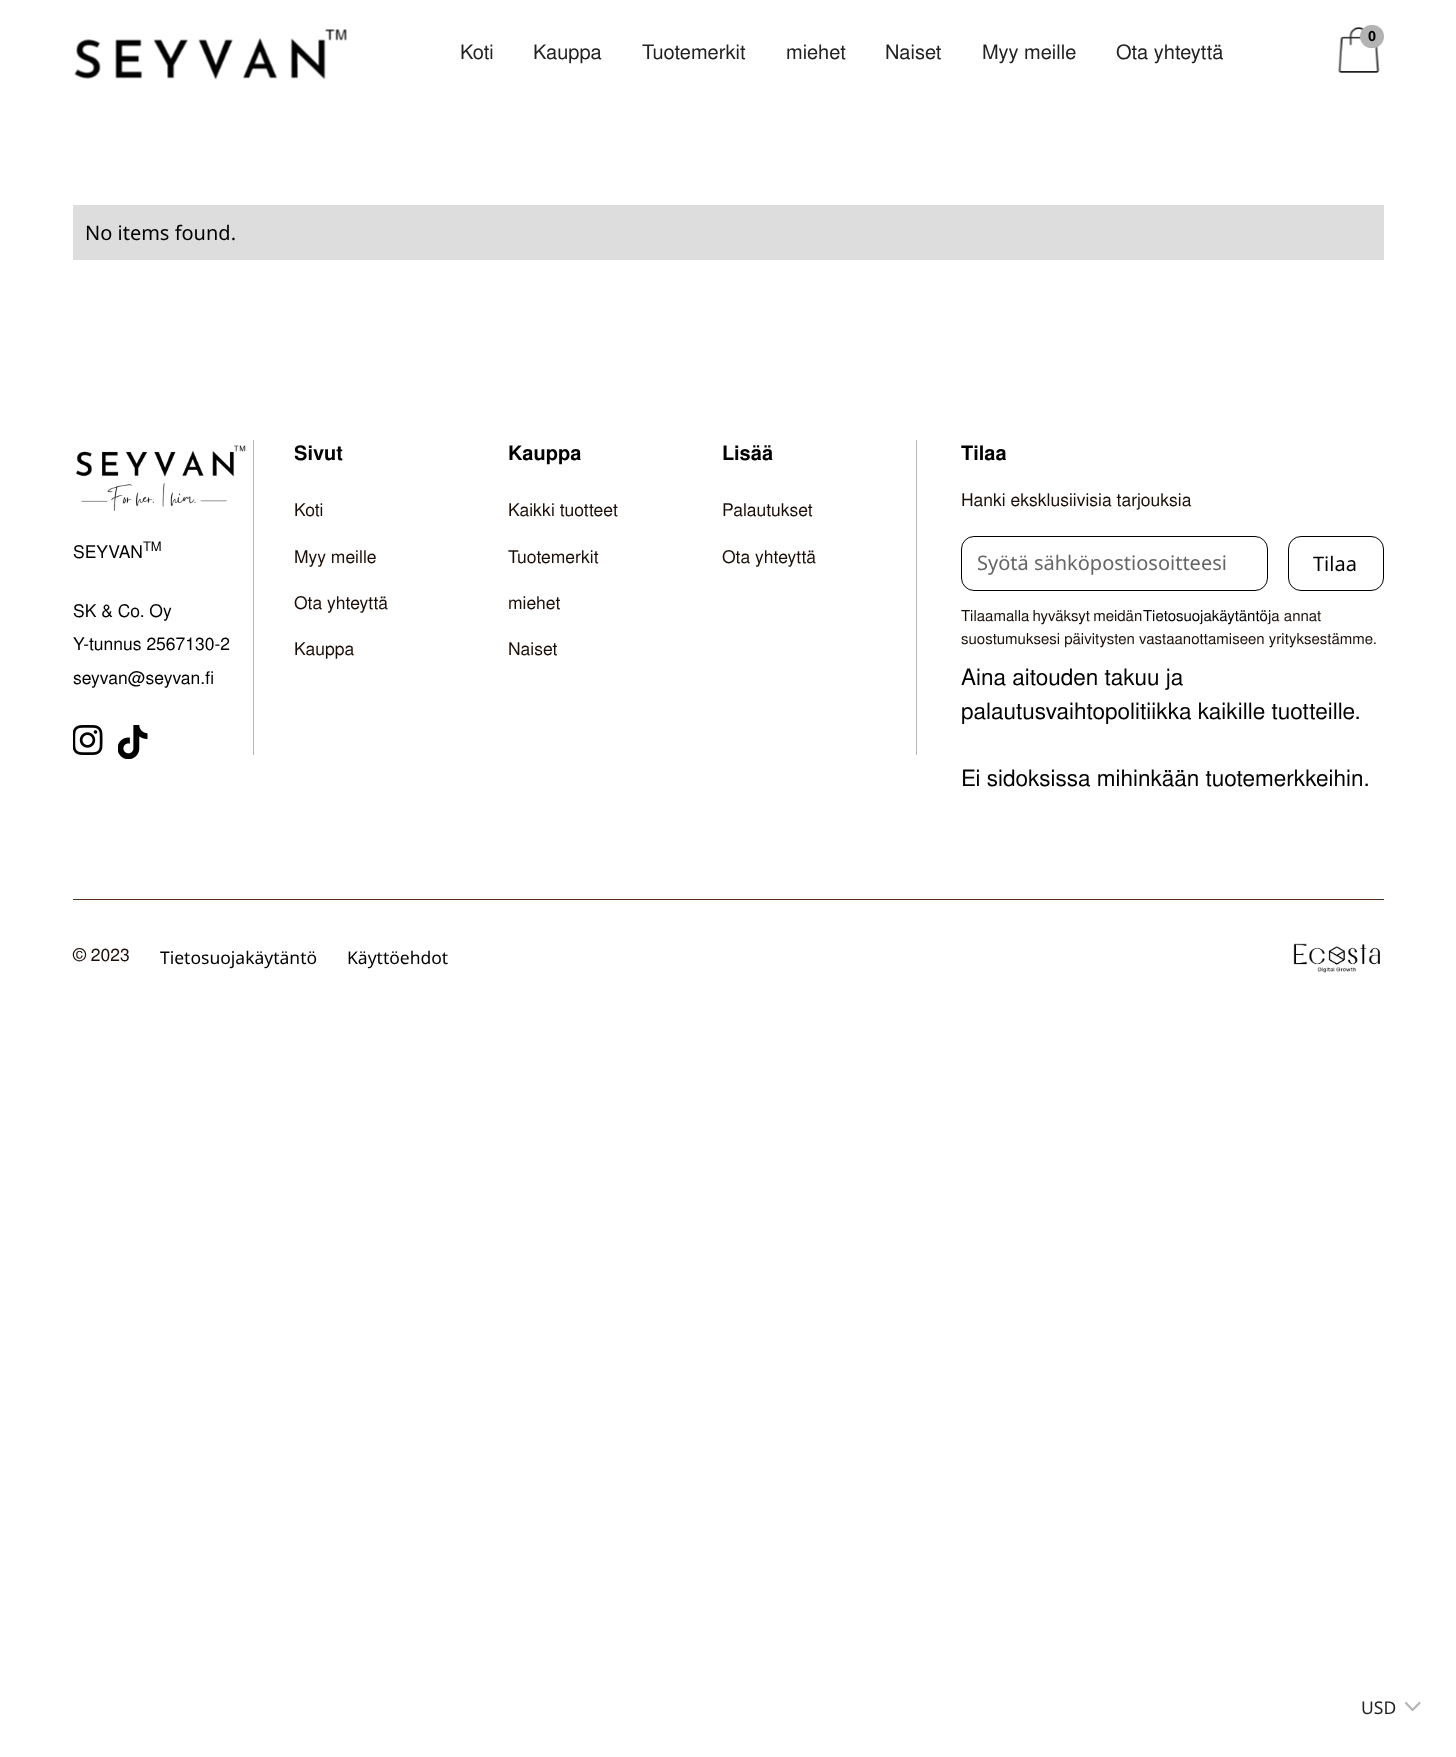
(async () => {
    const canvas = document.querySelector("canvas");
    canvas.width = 1456;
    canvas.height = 1757;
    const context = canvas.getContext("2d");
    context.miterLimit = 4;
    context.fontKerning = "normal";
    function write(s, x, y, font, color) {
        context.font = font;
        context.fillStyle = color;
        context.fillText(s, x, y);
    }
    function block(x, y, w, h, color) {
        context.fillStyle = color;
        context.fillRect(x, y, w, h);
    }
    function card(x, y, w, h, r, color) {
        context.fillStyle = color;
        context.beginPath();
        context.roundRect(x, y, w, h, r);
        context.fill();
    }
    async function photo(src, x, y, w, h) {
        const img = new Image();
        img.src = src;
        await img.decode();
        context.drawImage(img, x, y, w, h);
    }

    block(0, 0, 1456, 1757, "rgb(255, 255, 255)");
    await photo("media/1.png", 74, 29, 273, 51);
    await photo("media/2.png", 1338, 27, 42, 46);
    card(1360, 25, 24, 23, 11.5, "rgb(179, 179, 179)");
    write("0", 1368, 41, "bold 14px Noto Sans", "rgb(0, 0, 0)");
    write("Koti", 460, 59, "20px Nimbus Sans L", "rgb(34, 34, 34)");
    write("Kauppa", 533, 59, "20px Nimbus Sans L", "rgb(34, 34, 34)");
    write("Tuotemerkit", 642, 59, "20px Nimbus Sans L", "rgb(34, 34, 34)");
    write("miehet", 786, 59, "20px Nimbus Sans L", "rgb(34, 34, 34)");
    write("Naiset", 885, 59, "20px Nimbus Sans L", "rgb(34, 34, 34)");
    write("Myy meille", 982, 59, "20px Nimbus Sans L", "rgb(34, 34, 34)");
    write("Ota yhteyttä", 1116, 59, "20px Nimbus Sans L", "rgb(34, 34, 34)");
    block(73, 205, 1311, 55, "rgb(221, 221, 221)");
    write("No items found.", 85, 240, "20px Noto Sans", "rgb(0, 0, 0)");
    block(916, 440, 1, 315, "rgb(184, 184, 184)");
    block(253, 440, 1, 315, "rgb(184, 184, 184)");
    await photo("media/3.png", 76, 445, 170, 66);
    write("SEYVAN", 73, 558, "17.5px Nimbus Sans L", "rgb(0, 0, 0)");
    write("TM", 143, 551, "13px Nimbus Sans L", "rgb(0, 0, 0)");
    write("SK & Co. Oy", 73, 617, "17.5px Nimbus Sans L", "rgb(0, 0, 0)");
    write("Y-tunnus 2567130-2", 73, 650, "17.5px Nimbus Sans L", "rgb(0, 0, 0)");
    write("seyvan@seyvan.fi", 73, 684, "17.5px Nimbus Sans L", "rgb(0, 0, 0)");
    await photo("media/4.png", 73, 725, 30, 30);
    await photo("media/5.png", 118, 725, 30, 34);
    write("Sivut", 294, 460, "bold 20px Nimbus Sans L", "rgb(0, 0, 0)");
    write("Koti", 294, 516, "17.5px Nimbus Sans L", "rgb(27, 14, 8)");
    write("Myy meille", 294, 563, "17.5px Nimbus Sans L", "rgb(27, 14, 8)");
    write("Ota yhteyttä", 294, 609, "17.5px Nimbus Sans L", "rgb(27, 14, 8)");
    write("Kauppa", 294, 655, "17.5px Nimbus Sans L", "rgb(27, 14, 8)");
    write("Kauppa", 508, 460, "bold 20px Nimbus Sans L", "rgb(0, 0, 0)");
    write("Kaikki tuotteet", 508, 516, "17.5px Nimbus Sans L", "rgb(27, 14, 8)");
    write("Tuotemerkit", 508, 563, "17.5px Nimbus Sans L", "rgb(27, 14, 8)");
    write("miehet", 508, 609, "17.5px Nimbus Sans L", "rgb(27, 14, 8)");
    write("Naiset", 508, 655, "17.5px Nimbus Sans L", "rgb(27, 14, 8)");
    write("Lisää", 722, 460, "bold 20px Nimbus Sans L", "rgb(0, 0, 0)");
    write("Palautukset", 722, 516, "17.5px Nimbus Sans L", "rgb(27, 14, 8)");
    write("Ota yhteyttä", 722, 563, "17.5px Nimbus Sans L", "rgb(27, 14, 8)");
    write("Tilaa", 961, 460, "bold 20px Nimbus Sans L", "rgb(0, 0, 0)");
    write("Hanki eksklusiivisia tarjouksia", 961, 506, "17.5px Nimbus Sans L", "rgb(27, 14, 8)");
    context.beginPath();
    context.roundRect(961.5, 536.5, 306, 54, 12.5);
    context.strokeStyle = "rgb(0, 0, 0)";
    context.stroke();
    write("Syötä sähköpostiosoitteesi", 977, 570, "20px Noto Sans", "rgb(102, 102, 102)");
    context.beginPath();
    context.roundRect(1288.5, 536.5, 95, 54, 12.5);
    context.stroke();
    write("Tilaa", 1313, 571, "20px Noto Sans", "rgb(0, 0, 0)");
    context.wordSpacing = "-1px";
    write("Tilaamalla hyväksyt meidän", 961, 621, "15px Nimbus Sans L", "rgb(27, 14, 8)");
    context.wordSpacing = "0px";
    write("Tietosuojakäytäntö", 1143, 621, "15px Nimbus Sans L", "rgb(0, 0, 0)");
    write("ja annat", 1268, 621, "15px Nimbus Sans L", "rgb(27, 14, 8)");
    write("suostumuksesi päivitysten vastaanottamiseen yrityksestämme.", 961, 644, "15px Nimbus Sans L", "rgb(27, 14, 8)");
    write("Aina aitouden takuu ja", 961, 685, "22.5px Nimbus Sans L", "rgb(0, 0, 0)");
    write("palautusvaihtopolitiikka kaikille tuotteille.", 961, 719, "22.5px Nimbus Sans L", "rgb(0, 0, 0)");
    write("Ei sidoksissa mihinkään tuotemerkkeihin.", 961, 786, "22.5px Nimbus Sans L", "rgb(0, 0, 0)");
    block(73, 899, 1311, 1, "rgb(85, 47, 28)");
    write("© 2023", 73, 961, "17.5px Nimbus Sans L", "rgb(27, 14, 8)");
    write("Tietosuojakäytäntö", 160, 964, "17.5px Noto Sans", "rgb(0, 0, 0)");
    write("Käyttöehdot", 347, 964, "17.5px Noto Sans", "rgb(0, 0, 0)");
    await photo("media/6.png", 1293, 943, 87, 30);
    write("USD", 1361, 1714, "17.5px Noto Sans", "rgb(34, 34, 34)");
    context.beginPath();
    context.moveTo(1406, 1703);
    context.lineTo(1412.5, 1710);
    context.lineTo(1419.5, 1703);
    context.strokeStyle = "rgb(183, 183, 183)";
    context.lineWidth = 2.3;
    context.lineCap = "round";
    context.lineJoin = "round";
    context.stroke();
})();
